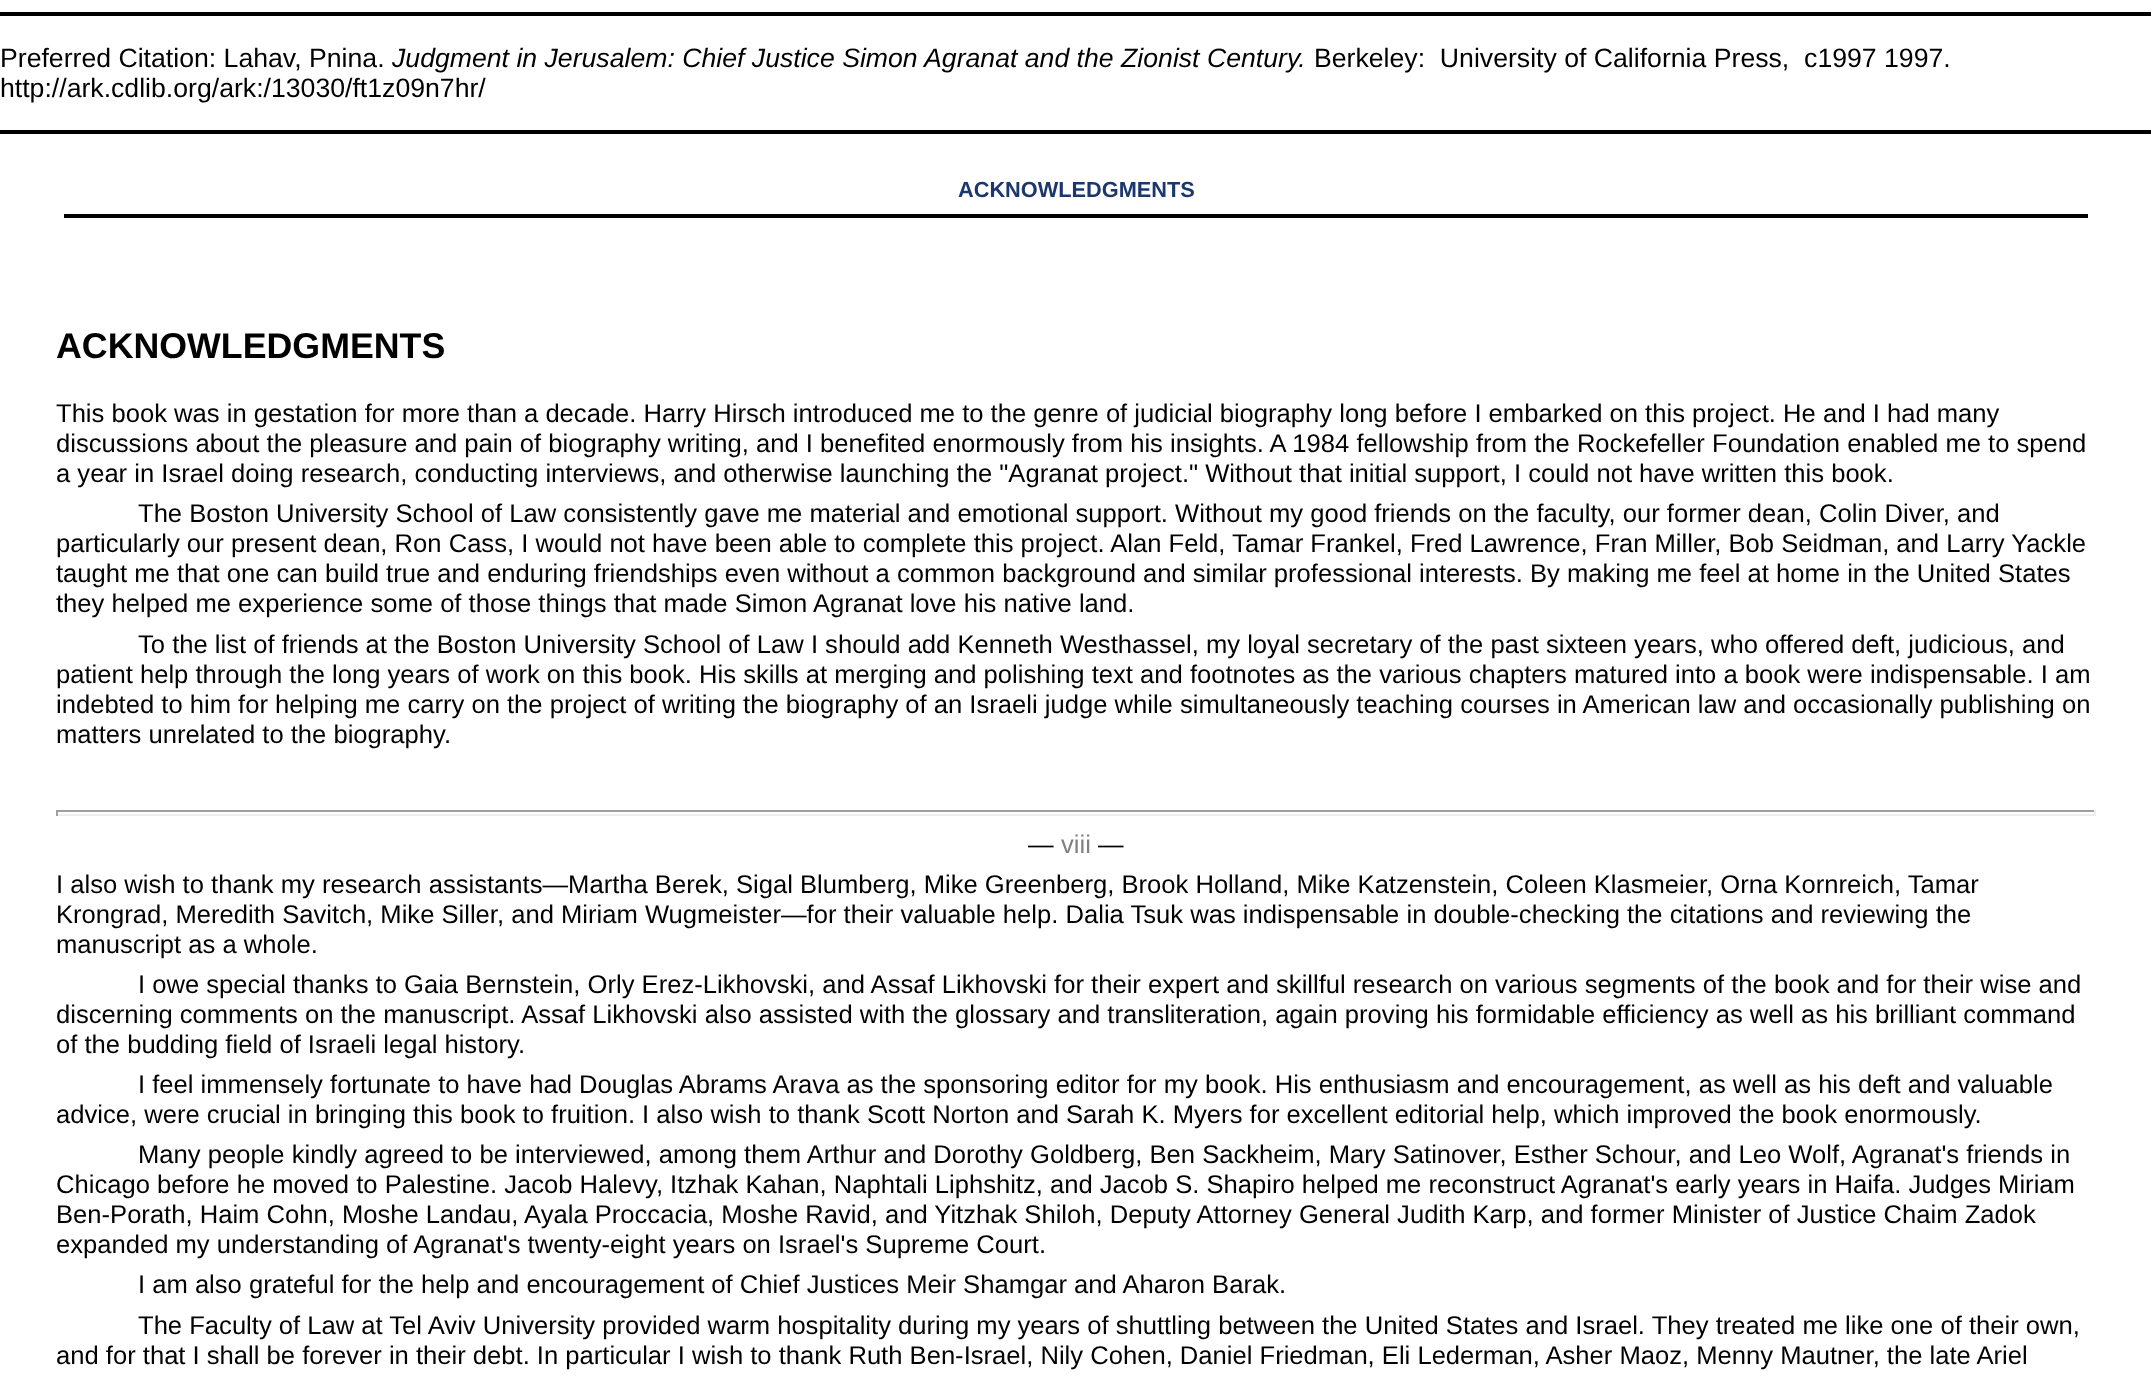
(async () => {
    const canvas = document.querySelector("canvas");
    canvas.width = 2151;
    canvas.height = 1378;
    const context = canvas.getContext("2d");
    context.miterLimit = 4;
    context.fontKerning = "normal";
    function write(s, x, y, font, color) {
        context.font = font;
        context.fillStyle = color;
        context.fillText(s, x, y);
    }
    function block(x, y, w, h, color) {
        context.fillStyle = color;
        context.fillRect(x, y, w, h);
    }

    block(0, 0, 2151, 1378, "rgb(255, 255, 255)");
    block(0, 12, 2151, 4, "rgb(0, 0, 0)");
    write("Preferred Citation: Lahav, Pnina.", 0, 67, "26.65px Liberation Sans", "rgb(0, 0, 0)");
    write("Judgment in Jerusalem: Chief Justice Simon Agranat and the Zionist Century.", 392, 67, "italic 26.65px Liberation Sans", "rgb(0, 0, 0)");
    write("Berkeley:  University of California Press,  c1997 1997.", 1314, 67, "26.65px Liberation Sans", "rgb(0, 0, 0)");
    write("http://ark.cdlib.org/ark:/13030/ft1z09n7hr/", 0, 97, "26.65px Liberation Sans", "rgb(0, 0, 0)");
    block(0, 130, 2151, 4, "rgb(0, 0, 0)");
    write("ACKNOWLEDGMENTS", 958, 197, "bold 21.75px Liberation Sans", "rgb(28, 55, 110)");
    block(64, 214, 2024, 4, "rgb(0, 0, 0)");
    write("ACKNOWLEDGMENTS", 56, 358, "bold 35.75px Liberation Sans", "rgb(0, 0, 0)");
    write("This book was in gestation for more than a decade. Harry Hirsch introduced me to the genre of judicial biography long before I embarked on this project. He and I had many", 56, 422, "25.6px Liberation Sans", "rgb(0, 0, 0)");
    write("discussions about the pleasure and pain of biography writing, and I benefited enormously from his insights. A 1984 fellowship from the Rockefeller Foundation enabled me to spend", 56, 452, "25.6px Liberation Sans", "rgb(0, 0, 0)");
    write("a year in Israel doing research, conducting interviews, and otherwise launching the \"Agranat project.\" Without that initial support, I could not have written this book.", 56, 482, "25.6px Liberation Sans", "rgb(0, 0, 0)");
    write("The Boston University School of Law consistently gave me material and emotional support. Without my good friends on the faculty, our former dean, Colin Diver, and", 138, 522, "25.6px Liberation Sans", "rgb(0, 0, 0)");
    write("particularly our present dean, Ron Cass, I would not have been able to complete this project. Alan Feld, Tamar Frankel, Fred Lawrence, Fran Miller, Bob Seidman, and Larry Yackle", 56, 552, "25.6px Liberation Sans", "rgb(0, 0, 0)");
    write("taught me that one can build true and enduring friendships even without a common background and similar professional interests. By making me feel at home in the United States", 56, 582, "25.6px Liberation Sans", "rgb(0, 0, 0)");
    write("they helped me experience some of those things that made Simon Agranat love his native land.", 56, 612, "25.6px Liberation Sans", "rgb(0, 0, 0)");
    write("To the list of friends at the Boston University School of Law I should add Kenneth Westhassel, my loyal secretary of the past sixteen years, who offered deft, judicious, and", 138, 653, "25.6px Liberation Sans", "rgb(0, 0, 0)");
    write("patient help through the long years of work on this book. His skills at merging and polishing text and footnotes as the various chapters matured into a book were indispensable. I am", 56, 683, "25.6px Liberation Sans", "rgb(0, 0, 0)");
    write("indebted to him for helping me carry on the project of writing the biography of an Israeli judge while simultaneously teaching courses in American law and occasionally publishing on", 56, 713, "25.6px Liberation Sans", "rgb(0, 0, 0)");
    write("matters unrelated to the biography.", 56, 743, "25.6px Liberation Sans", "rgb(0, 0, 0)");
    block(56, 810, 2040, 2, "rgb(159, 159, 159)");
    block(2094, 810, 2, 6, "rgb(238, 238, 238)");
    block(56, 814, 2040, 2, "rgb(238, 238, 238)");
    block(56, 810, 2, 6, "rgb(159, 159, 159)");
    write("―", 1028, 853, "25.6px Liberation Sans", "rgb(0, 0, 0)");
    write("viii", 1061, 853, "25.6px Liberation Sans", "rgb(128, 128, 128)");
    write("―", 1098, 853, "25.6px Liberation Sans", "rgb(0, 0, 0)");
    write("I also wish to thank my research assistants—Martha Berek, Sigal Blumberg, Mike Greenberg, Brook Holland, Mike Katzenstein, Coleen Klasmeier, Orna Kornreich, Tamar", 56, 893, "25.6px Liberation Sans", "rgb(0, 0, 0)");
    write("Krongrad, Meredith Savitch, Mike Siller, and Miriam Wugmeister—for their valuable help. Dalia Tsuk was indispensable in double-checking the citations and reviewing the", 56, 923, "25.6px Liberation Sans", "rgb(0, 0, 0)");
    write("manuscript as a whole.", 56, 953, "25.6px Liberation Sans", "rgb(0, 0, 0)");
    write("I owe special thanks to Gaia Bernstein, Orly Erez-Likhovski, and Assaf Likhovski for their expert and skillful research on various segments of the book and for their wise and", 138, 993, "25.6px Liberation Sans", "rgb(0, 0, 0)");
    write("discerning comments on the manuscript. Assaf Likhovski also assisted with the glossary and transliteration, again proving his formidable efficiency as well as his brilliant command", 56, 1023, "25.6px Liberation Sans", "rgb(0, 0, 0)");
    write("of the budding field of Israeli legal history.", 56, 1053, "25.6px Liberation Sans", "rgb(0, 0, 0)");
    write("I feel immensely fortunate to have had Douglas Abrams Arava as the sponsoring editor for my book. His enthusiasm and encouragement, as well as his deft and valuable", 138, 1093, "25.6px Liberation Sans", "rgb(0, 0, 0)");
    write("advice, were crucial in bringing this book to fruition. I also wish to thank Scott Norton and Sarah K. Myers for excellent editorial help, which improved the book enormously.", 56, 1123, "25.6px Liberation Sans", "rgb(0, 0, 0)");
    write("Many people kindly agreed to be interviewed, among them Arthur and Dorothy Goldberg, Ben Sackheim, Mary Satinover, Esther Schour, and Leo Wolf, Agranat's friends in", 138, 1163, "25.6px Liberation Sans", "rgb(0, 0, 0)");
    write("Chicago before he moved to Palestine. Jacob Halevy, Itzhak Kahan, Naphtali Liphshitz, and Jacob S. Shapiro helped me reconstruct Agranat's early years in Haifa. Judges Miriam", 56, 1193, "25.6px Liberation Sans", "rgb(0, 0, 0)");
    write("Ben-Porath, Haim Cohn, Moshe Landau, Ayala Proccacia, Moshe Ravid, and Yitzhak Shiloh, Deputy Attorney General Judith Karp, and former Minister of Justice Chaim Zadok", 56, 1223, "25.6px Liberation Sans", "rgb(0, 0, 0)");
    write("expanded my understanding of Agranat's twenty-eight years on Israel's Supreme Court.", 56, 1253, "25.6px Liberation Sans", "rgb(0, 0, 0)");
    write("I am also grateful for the help and encouragement of Chief Justices Meir Shamgar and Aharon Barak.", 138, 1293, "25.6px Liberation Sans", "rgb(0, 0, 0)");
    write("The Faculty of Law at Tel Aviv University provided warm hospitality during my years of shuttling between the United States and Israel. They treated me like one of their own,", 138, 1334, "25.6px Liberation Sans", "rgb(0, 0, 0)");
    write("and for that I shall be forever in their debt. In particular I wish to thank Ruth Ben-Israel, Nily Cohen, Daniel Friedman, Eli Lederman, Asher Maoz, Menny Mautner, the late Ariel", 56, 1364, "25.6px Liberation Sans", "rgb(0, 0, 0)");
})();
